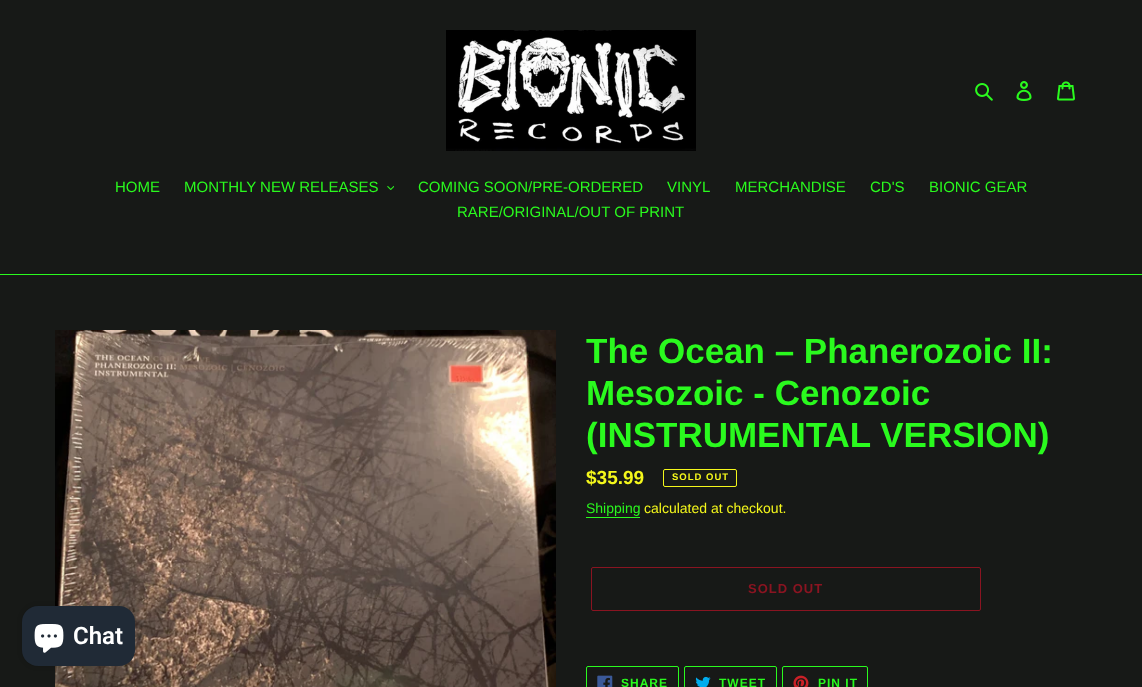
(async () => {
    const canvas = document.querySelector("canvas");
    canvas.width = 1142;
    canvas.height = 687;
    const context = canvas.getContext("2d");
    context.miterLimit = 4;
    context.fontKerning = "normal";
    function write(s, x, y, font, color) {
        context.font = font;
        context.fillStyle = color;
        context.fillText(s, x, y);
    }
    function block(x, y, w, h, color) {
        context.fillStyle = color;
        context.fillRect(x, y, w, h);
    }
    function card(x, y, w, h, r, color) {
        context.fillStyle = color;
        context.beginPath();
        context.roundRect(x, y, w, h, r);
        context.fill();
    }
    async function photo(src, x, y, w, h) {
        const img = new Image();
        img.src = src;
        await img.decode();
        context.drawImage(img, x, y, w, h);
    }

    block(0, 0, 1142, 687, "rgb(23, 25, 23)");
    await photo("media/1.png", 446, 30, 250, 121);
    await photo("media/2.png", 975, 83, 18, 18);
    await photo("media/3.png", 1016, 81, 16, 20);
    await photo("media/4.png", 1057, 81, 18, 20);
    block(0, 274, 1142, 1, "rgb(42, 250, 30)");
    write("HOME", 115, 192, "15px Liberation Sans", "rgb(42, 250, 30)");
    write("MONTHLY NEW RELEASES", 184, 192, "15px Liberation Sans", "rgb(42, 250, 30)");
    await photo("media/5.png", 387, 186, 7, 4);
    write("COMING SOON/PRE-ORDERED", 418, 192, "15px Liberation Sans", "rgb(42, 250, 30)");
    write("VINYL", 667, 192, "15px Liberation Sans", "rgb(42, 250, 30)");
    write("MERCHANDISE", 735, 192, "15px Liberation Sans", "rgb(42, 250, 30)");
    write("CD'S", 870, 192, "15px Liberation Sans", "rgb(42, 250, 30)");
    write("BIONIC GEAR", 929, 192, "15px Liberation Sans", "rgb(42, 250, 30)");
    write("RARE/ORIGINAL/OUT OF PRINT", 457, 217, "15px Liberation Sans", "rgb(42, 250, 30)");
    await photo("media/7.png", 55, 330, 501, 357);
    context.fillStyle = "rgba(0, 0, 0, 0.15)";
    context.filter = "blur(2.5px)";
    context.beginPath();
    context.roundRect(22, 606, 113, 60, 16);
    context.fill();
    context.filter = "none";
    card(22, 606, 113, 60, 16, "rgb(32, 42, 54)");
    await photo("media/6.png", 34, 624, 30, 29);
    write("Chat", 73, 644, "600 24px Roboto", "rgb(255, 255, 255)");
    write("The Ocean – Phanerozoic II:", 586, 363, "bold 35px Liberation Sans", "rgb(42, 250, 30)");
    write("Mesozoic - Cenozoic", 586, 405, "bold 35px Liberation Sans", "rgb(42, 250, 30)");
    write("(INSTRUMENTAL VERSION)", 586, 447, "bold 35px Liberation Sans", "rgb(42, 250, 30)");
    write("$35.99", 586, 484, "bold 19px Liberation Sans", "rgb(244, 247, 27)");
    context.beginPath();
    context.roundRect(663.5, 469.5, 73, 17, 1.5);
    context.strokeStyle = "rgb(244, 247, 27)";
    context.stroke();
    context.letterSpacing = "1px";
    write("SOLD OUT", 672, 480, "bold 9.5px Liberation Sans", "rgb(244, 247, 27)");
    context.letterSpacing = "0px";
    write("Shipping", 586, 513, "14px Liberation Sans", "rgb(42, 250, 30)");
    block(586, 517, 54, 1, "rgb(42, 250, 30)");
    write("calculated at checkout.", 644, 513, "14px Liberation Sans", "rgb(244, 247, 27)");
    context.beginPath();
    context.roundRect(591.5, 567.5, 389, 43, 1.5);
    context.strokeStyle = "rgb(138, 20, 33)";
    context.stroke();
    context.letterSpacing = "1px";
    write("SOLD OUT", 748, 593, "bold 13px Liberation Sans", "rgb(138, 20, 33)");
    context.beginPath();
    context.roundRect(586.5, 666.5, 92, 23, 1.5);
    context.strokeStyle = "rgb(42, 250, 30)";
    context.stroke();
    await photo("media/8.png", 597, 675, 16, 12);
    write("SHARE", 621, 687, "bold 12px Liberation Sans", "rgb(42, 250, 30)");
    context.beginPath();
    context.roundRect(684.5, 666.5, 92, 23, 1.5);
    context.stroke();
    await photo("media/9.png", 695, 676, 16, 11);
    write("TWEET", 719, 687, "bold 12px Liberation Sans", "rgb(42, 250, 30)");
    context.beginPath();
    context.roundRect(782.5, 666.5, 85, 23, 1.5);
    context.stroke();
    await photo("media/10.png", 793, 675, 16, 12);
    write("PIN IT", 818, 687, "bold 12px Liberation Sans", "rgb(42, 250, 30)");
})();
